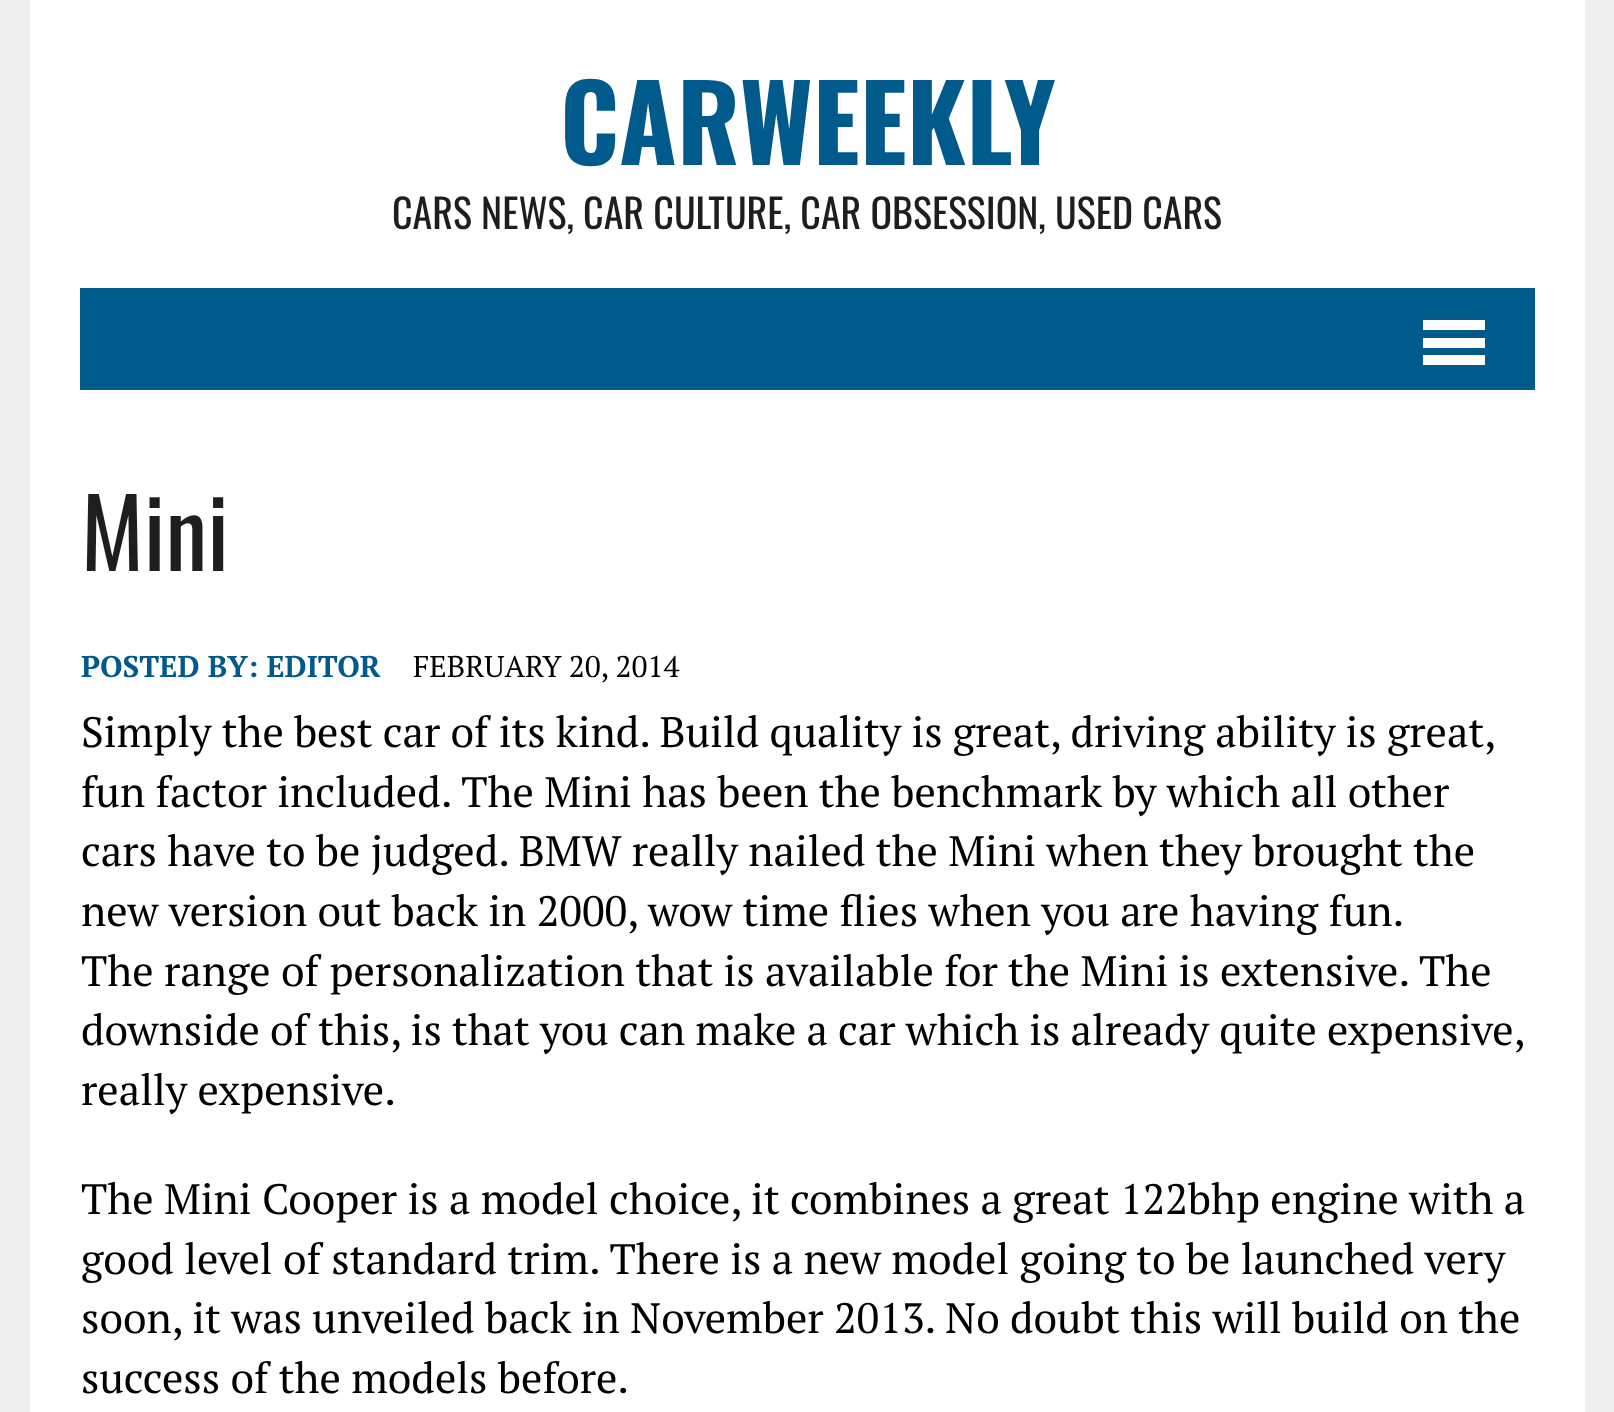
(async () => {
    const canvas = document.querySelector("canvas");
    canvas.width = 1614;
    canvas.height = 1412;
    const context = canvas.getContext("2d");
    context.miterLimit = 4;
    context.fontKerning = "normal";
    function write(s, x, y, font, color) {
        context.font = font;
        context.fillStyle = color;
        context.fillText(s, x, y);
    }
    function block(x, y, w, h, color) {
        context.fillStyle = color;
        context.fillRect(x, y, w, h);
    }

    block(0, 0, 1614, 1412, "rgb(239, 239, 239)");
    block(30, 0, 1555, 1412, "rgb(255, 255, 255)");
    write("CARWEEKLY", 560, 165, "bold 105px Oswald", "rgb(0, 90, 140)");
    write("CARS NEWS, CAR CULTURE, CAR OBSESSION, USED CARS", 392, 229, "40px Oswald", "rgb(31, 30, 30)");
    block(80, 288, 1455, 102, "rgb(0, 90, 140)");
    block(1423, 320, 62, 10, "rgb(255, 255, 255)");
    block(1423, 338, 62, 10, "rgb(255, 255, 255)");
    block(1423, 355, 62, 10, "rgb(255, 255, 255)");
    write("Mini", 81, 571, "95px Oswald", "rgb(31, 30, 30)");
    write("POSTED BY: EDITOR", 81, 677, "bold 30px PT Serif", "rgb(0, 90, 140)");
    write("FEBRUARY 20, 2014", 413, 677, "30px PT Serif", "rgb(0, 0, 0)");
    context.wordSpacing = "-0.2px";
    write("Simply the best car of its kind. Build quality is great, driving ability is great,", 81, 747, "42.5px PT Serif", "rgb(0, 0, 0)");
    context.wordSpacing = "0px";
    write("fun factor included. The Mini has been the benchmark by which all other", 81, 807, "42.5px PT Serif", "rgb(0, 0, 0)");
    write("cars have to be judged. BMW really nailed the Mini when they brought the", 81, 866, "42.5px PT Serif", "rgb(0, 0, 0)");
    write("new version out back in 2000, wow time flies when you are having fun.", 81, 926, "42.5px PT Serif", "rgb(0, 0, 0)");
    write("The range of personalization that is available for the Mini is extensive. The", 81, 986, "42.5px PT Serif", "rgb(0, 0, 0)");
    context.wordSpacing = "-0.2px";
    write("downside of this, is that you can make a car which is already quite expensive,", 81, 1045, "42.5px PT Serif", "rgb(0, 0, 0)");
    context.wordSpacing = "0px";
    write("really expensive.", 81, 1105, "42.5px PT Serif", "rgb(0, 0, 0)");
    write("The Mini Cooper is a model choice, it combines a great 122bhp engine with a", 81, 1214, "42.5px PT Serif", "rgb(0, 0, 0)");
    write("good level of standard trim. There is a new model going to be launched very", 81, 1274, "42.5px PT Serif", "rgb(0, 0, 0)");
    write("soon, it was unveiled back in November 2013. No doubt this will build on the", 81, 1333, "42.5px PT Serif", "rgb(0, 0, 0)");
    write("success of the models before.", 81, 1393, "42.5px PT Serif", "rgb(0, 0, 0)");
})();
